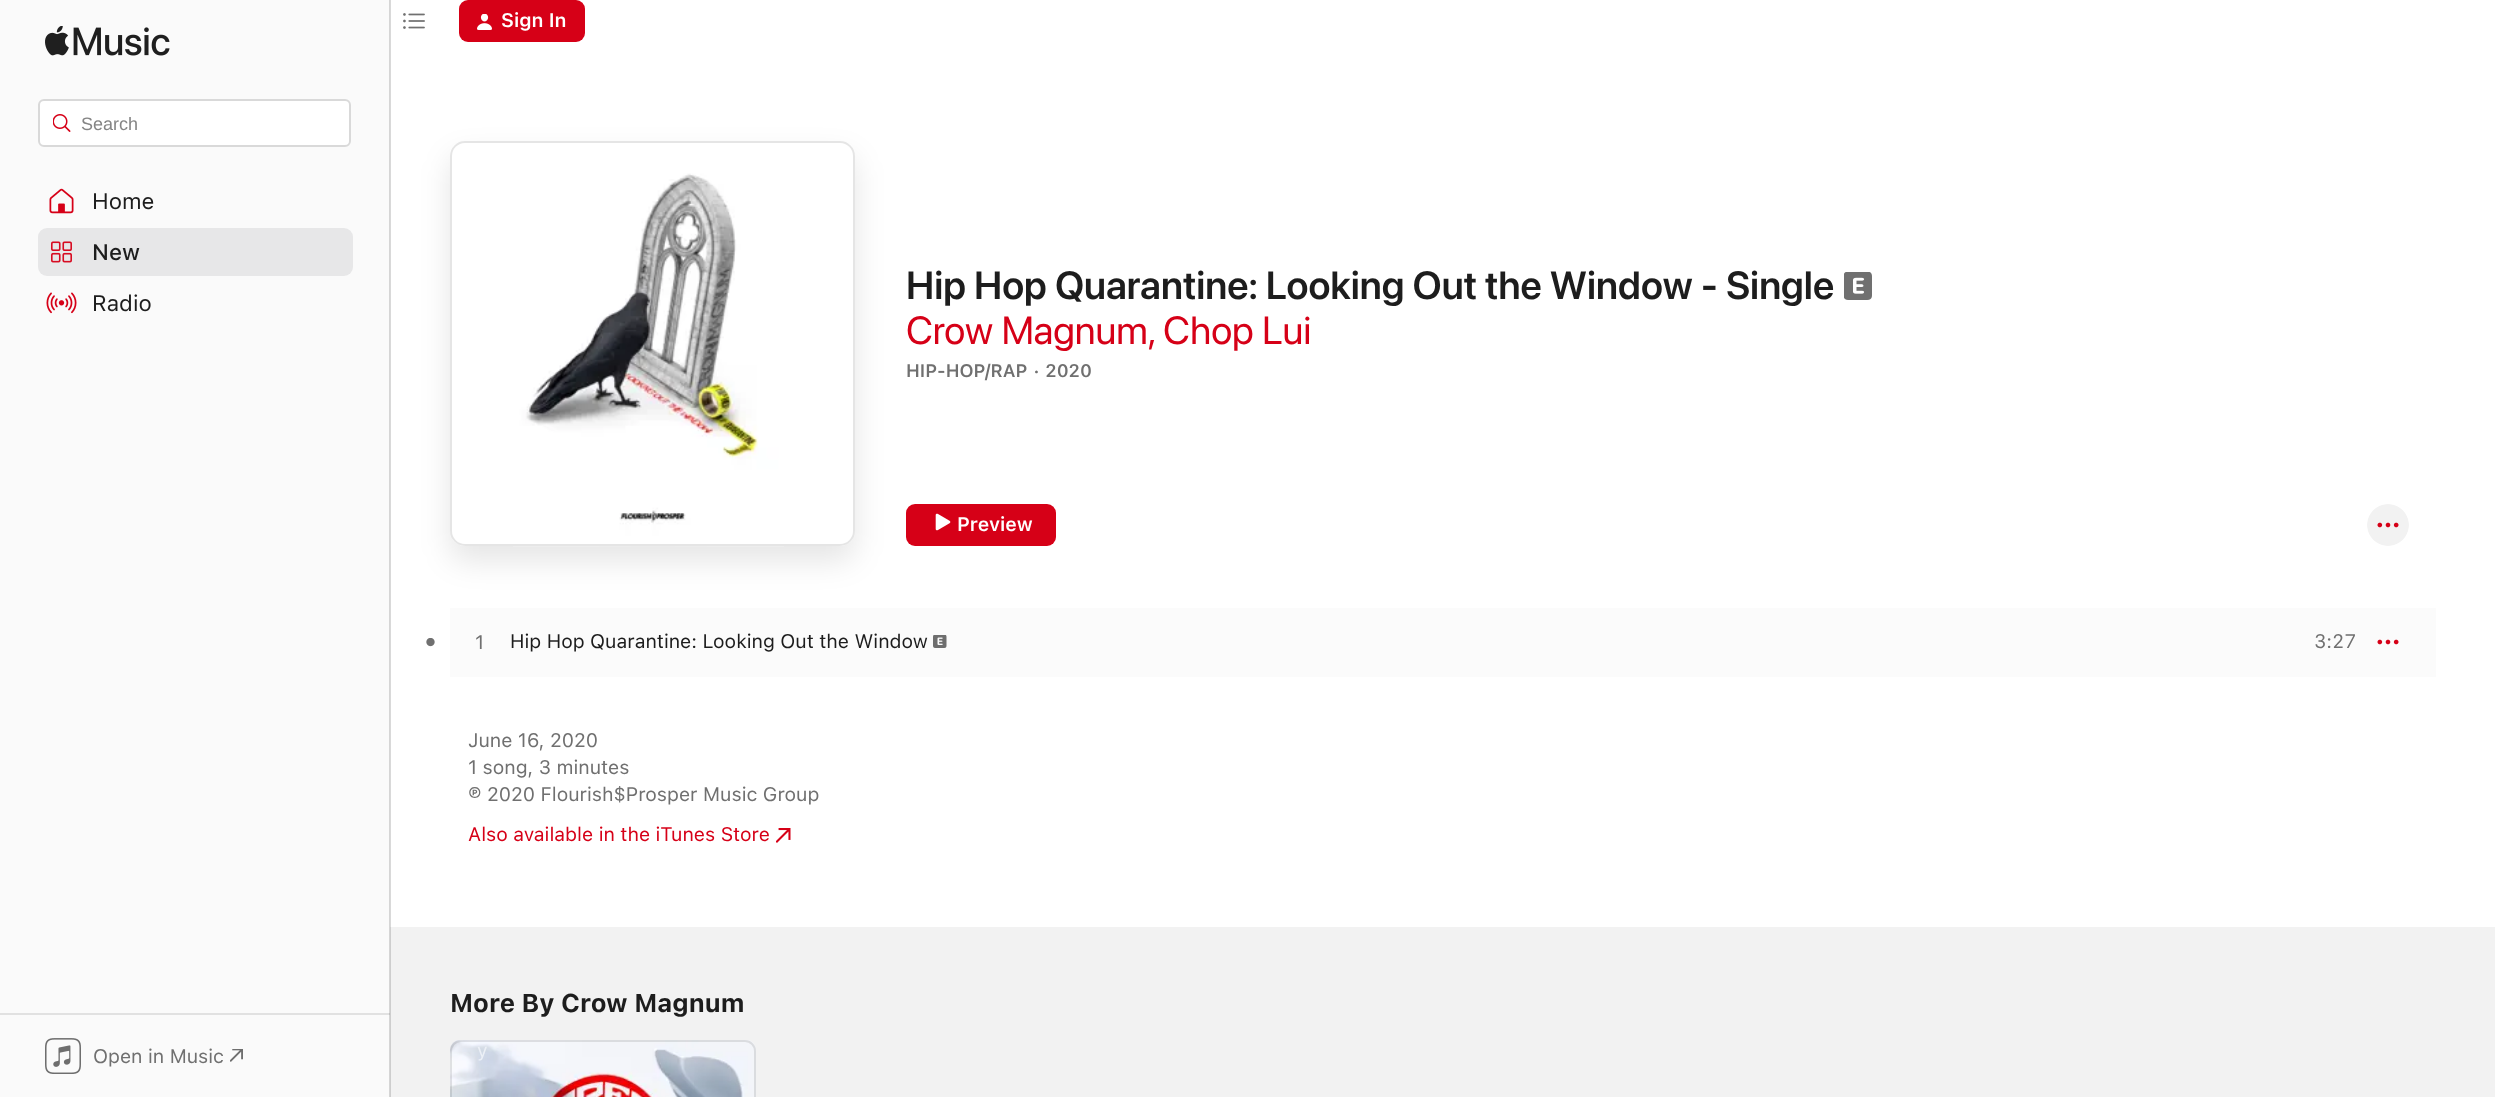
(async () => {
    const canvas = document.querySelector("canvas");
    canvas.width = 2495;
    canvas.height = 1097;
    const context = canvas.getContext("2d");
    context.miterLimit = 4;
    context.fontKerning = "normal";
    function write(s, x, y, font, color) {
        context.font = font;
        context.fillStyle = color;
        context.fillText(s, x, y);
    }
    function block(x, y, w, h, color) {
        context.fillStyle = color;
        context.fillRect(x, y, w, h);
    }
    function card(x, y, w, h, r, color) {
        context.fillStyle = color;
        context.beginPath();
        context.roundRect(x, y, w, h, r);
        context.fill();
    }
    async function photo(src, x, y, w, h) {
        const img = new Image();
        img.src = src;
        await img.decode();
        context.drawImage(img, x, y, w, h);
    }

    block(0, 0, 2495, 1097, "rgb(255, 255, 255)");
    block(390, 0, 1, 927, "rgb(217, 217, 217)");
    await photo("media/1.png", 403, 13, 22, 16);
    card(459, 0, 126, 42, 9, "rgb(214, 0, 23)");
    await photo("media/2.png", 477, 14, 15, 16);
    write("Sign In", 501, 27, "600 19.5px SF", "rgb(255, 255, 255)");
    block(0, 0, 389, 1097, "rgb(250, 250, 250)");
    block(0, 1013, 390, 2, "rgb(225, 225, 225)");
    block(389, 0, 1, 1097, "rgb(213, 213, 213)");
    block(389, 1013, 1, 2, "rgb(192, 192, 192)");
    await photo("media/3.png", 45, 26, 125, 30);
    context.fillStyle = "rgb(255, 255, 255)";
    context.beginPath();
    context.roundRect(39, 100, 311, 46, 5);
    context.fill();
    context.strokeStyle = "rgb(217, 217, 217)";
    context.lineWidth = 2;
    context.stroke();
    await photo("media/4.png", 53, 114, 18, 18);
    write("Search", 81, 130, "18px Liberation Sans", "rgb(133, 133, 133)");
    await photo("media/5.png", 49, 188, 25, 26);
    write("Home", 92, 209, "22.5px 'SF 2'", "rgb(29, 29, 29)");
    card(38, 228, 315, 48, 9, "rgb(231, 231, 232)");
    await photo("media/6.png", 51, 241, 21, 22);
    write("New", 92, 260, "500 22.5px SF", "rgb(29, 29, 29)");
    await photo("media/7.png", 46, 292, 31, 22);
    write("Radio", 92, 311, "22.5px 'SF 2'", "rgb(29, 29, 29)");
    await photo("media/8.png", 45, 1038, 36, 36);
    write("Open in Music", 93, 1063, "19.5px 'SF 2'", "rgb(112, 112, 112)");
    await photo("media/9.png", 230, 1049, 13, 13);
    context.save();
    context.beginPath();
    context.moveTo(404, 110);
    context.lineTo(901, 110);
    context.lineTo(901, 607);
    context.lineTo(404, 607);
    context.closePath();
    context.moveTo(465, 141);
    context.lineTo(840, 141);
    context.bezierCurveTo(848.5, 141, 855, 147.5, 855, 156);
    context.lineTo(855, 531);
    context.bezierCurveTo(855, 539.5, 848.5, 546, 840, 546);
    context.lineTo(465, 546);
    context.bezierCurveTo(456.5, 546, 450, 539.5, 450, 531);
    context.lineTo(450, 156);
    context.bezierCurveTo(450, 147.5, 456.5, 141, 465, 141);
    context.closePath();
    context.clip("evenodd");
    context.fillStyle = "rgba(0, 0, 0, 0.1)";
    context.filter = "blur(15px)";
    context.beginPath();
    context.roundRect(450, 156, 405, 405, 15);
    context.fill();
    context.filter = "none";
    context.restore();
    await photo("media/10.png", 474, 173, 357, 373);
    context.beginPath();
    context.roundRect(451, 142, 403, 403, 14);
    context.strokeStyle = "rgba(0, 0, 0, 0.1)";
    context.stroke();
    await photo("media/11.png", 513, 546, 271, 1);
    write("Hip Hop Quarantine: Looking Out the Window - Single", 906, 299, "600 39px 'SF 2'", "rgb(29, 29, 29)");
    await photo("media/12.png", 1844, 272, 28, 28);
    write("Crow Magnum, Chop Lui", 906, 344, "39px SF", "rgb(214, 0, 23)");
    write("HIP-HOP/RAP · 2020", 906, 377, "600 18px SF", "rgb(112, 112, 112)");
    card(906, 504, 150, 42, 9, "rgb(214, 0, 23)");
    await photo("media/13.png", 935, 513, 16, 18);
    write("Preview", 957, 531, "600 19.5px SF", "rgb(255, 255, 255)");
    await photo("media/14.png", 2367, 504, 42, 42);
    block(450, 608, 1986, 69, "rgb(251, 251, 251)");
    await photo("media/15.png", 426, 638, 9, 9);
    write("1", 475, 649, "19.5px 'SF 2'", "rgb(112, 112, 112)");
    write("Hip Hop Quarantine: Looking Out the Window", 510, 648, "19.5px 'SF 2'", "rgb(29, 29, 29)");
    await photo("media/16.png", 933, 635, 14, 13);
    write("3:27", 2314, 648, "19.5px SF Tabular", "rgb(112, 112, 112)");
    await photo("media/17.png", 2377, 639, 22, 6);
    write("June 16, 2020", 468, 747, "19.5px 'SF 2'", "rgb(112, 112, 112)");
    write("1 song, 3 minutes", 468, 774, "19.5px 'SF 2'", "rgb(112, 112, 112)");
    write("℗ 2020 Flourish$Prosper Music Group", 468, 801, "19.5px 'SF 2'", "rgb(112, 112, 112)");
    write("Also available in the iTunes Store", 468, 841, "19.5px 'SF 2'", "rgb(214, 0, 23)");
    await photo("media/18.png", 776, 828, 15, 15);
    block(391, 927, 2104, 170, "rgb(242, 242, 242)");
    block(390, 927, 1, 170, "rgb(206, 206, 206)");
    write("More By Crow Magnum", 450, 1012, "bold 25.5px SF", "rgb(29, 29, 29)");
    await photo("media/19.png", 450, 1040, 306, 57);
    context.beginPath();
    context.roundRect(451, 1041, 304, 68, 10);
    context.stroke();
    write("y", 477, 1057, "19.5px 'SF 2'", "rgb(236, 240, 246)");
})();
